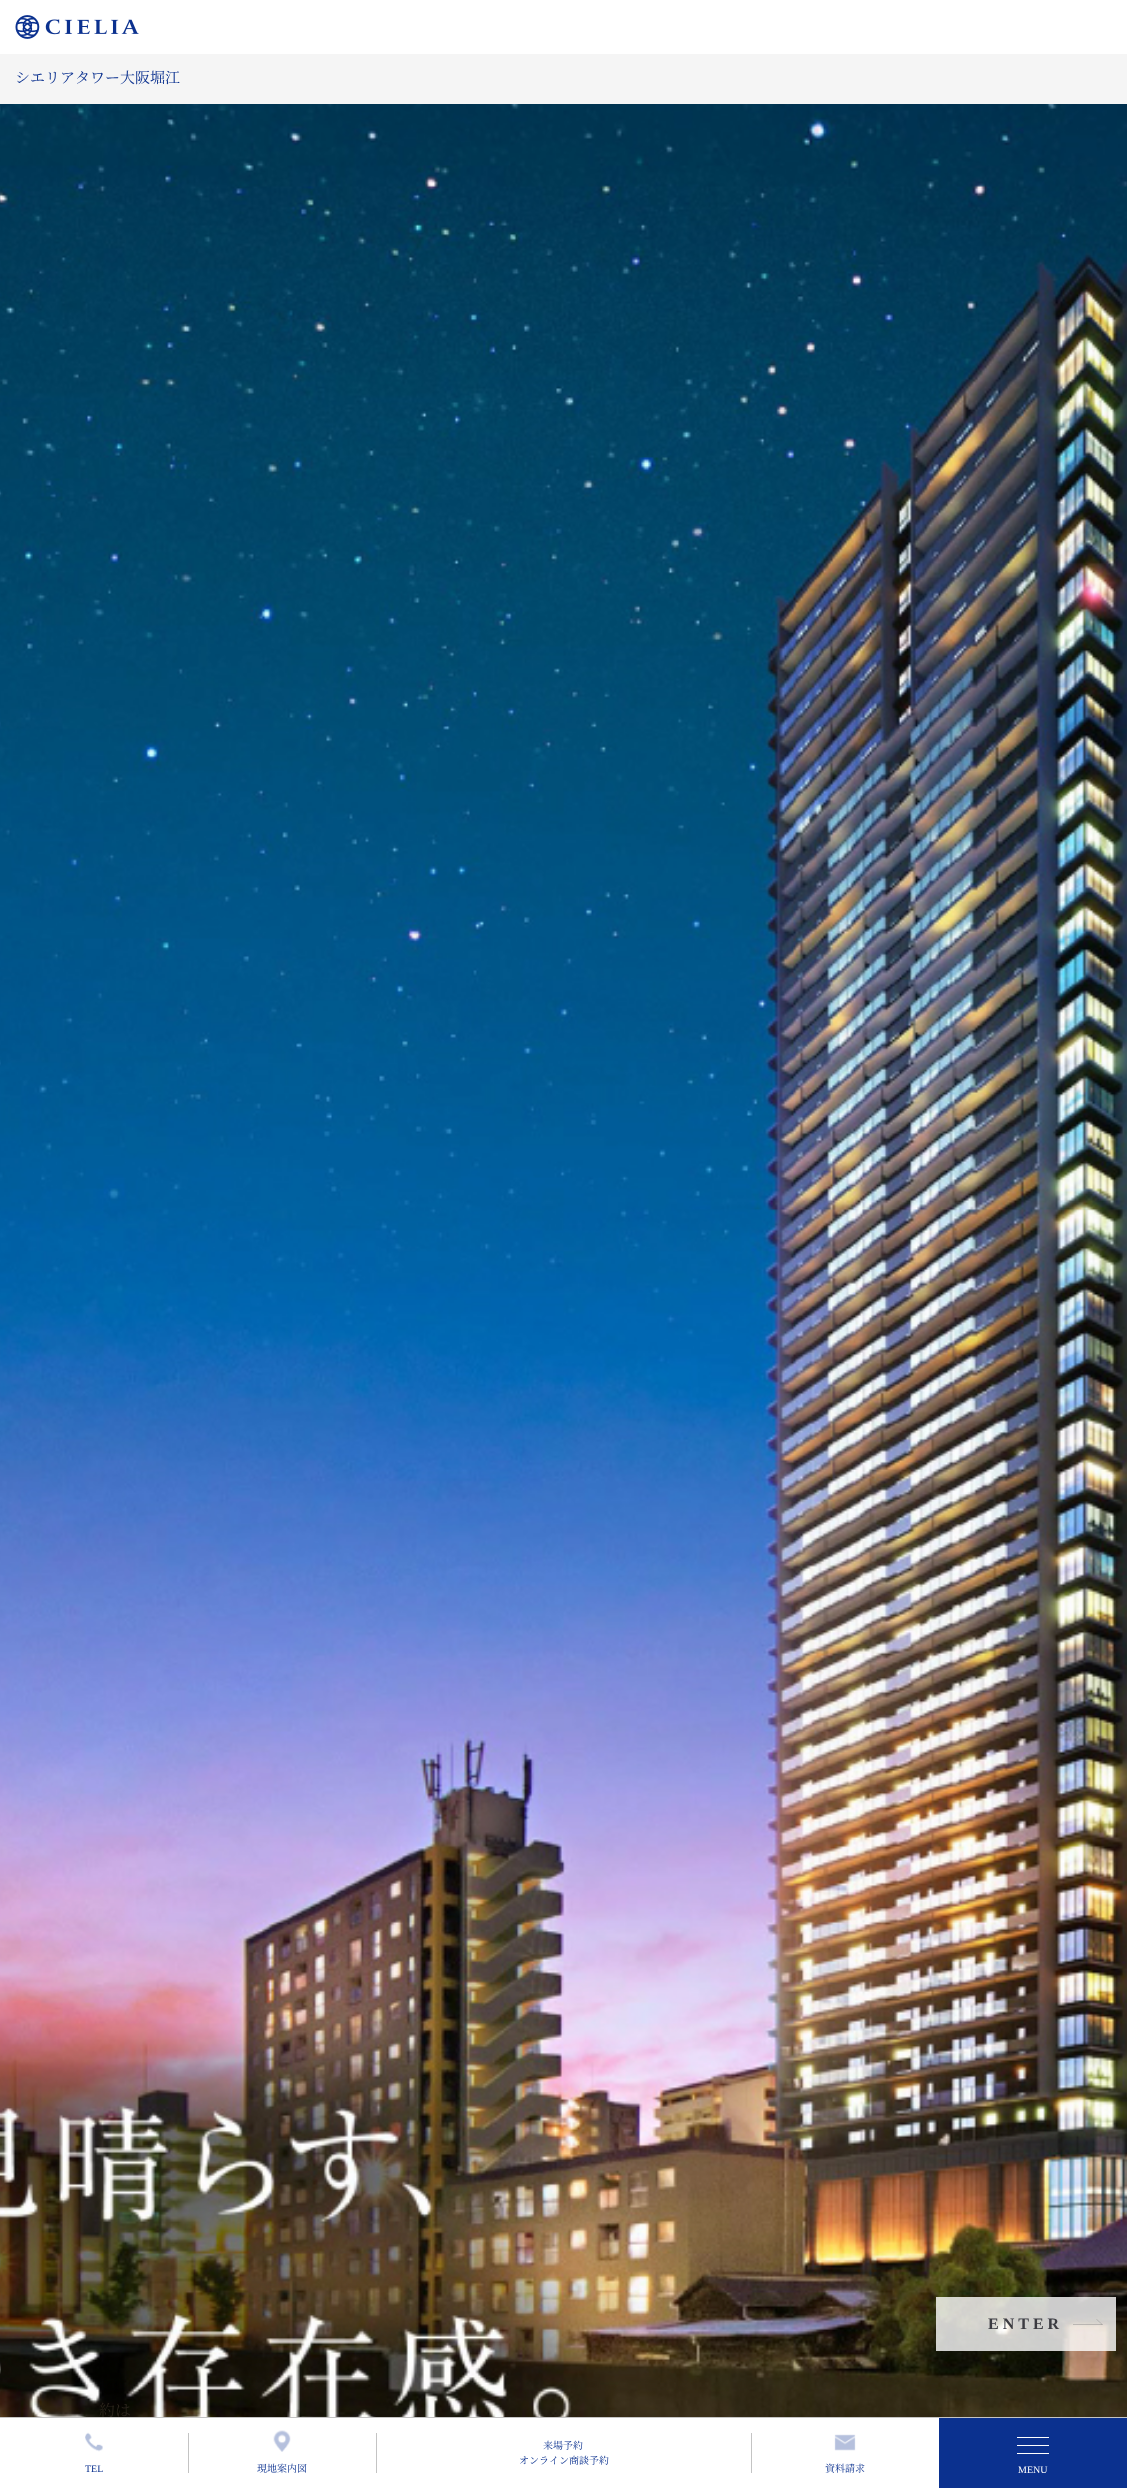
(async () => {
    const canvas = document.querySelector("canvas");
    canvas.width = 1127;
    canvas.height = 2488;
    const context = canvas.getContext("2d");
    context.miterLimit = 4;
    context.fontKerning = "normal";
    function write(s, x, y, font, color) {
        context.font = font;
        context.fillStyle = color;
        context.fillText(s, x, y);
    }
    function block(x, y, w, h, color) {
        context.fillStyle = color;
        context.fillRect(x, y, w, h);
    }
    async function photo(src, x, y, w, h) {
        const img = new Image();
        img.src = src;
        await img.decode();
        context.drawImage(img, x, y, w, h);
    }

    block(0, 0, 1127, 2488, "rgb(255, 255, 255)");
    await photo("media/1.png", 15, 15, 124, 24);
    block(0, 54, 1127, 50, "rgb(245, 245, 245)");
    write("シエリアタワー大阪堀江", 15, 83, "15px Noto Serif JP", "rgb(11, 49, 143)");
    await photo("media/2.png", 0, 104, 1127, 2313);
    block(936, 2297, 180, 54, "rgba(255, 255, 255, 0.8)");
    context.letterSpacing = "4px";
    write("ENTER", 988, 2329, "bold 16px Liberation Serif", "rgb(59, 59, 65)");
    context.fillStyle = "rgb(145, 144, 143)";
    context.beginPath();
    context.moveTo(1103, 2325);
    context.lineTo(1073, 2325);
    context.lineTo(1073, 2324.5);
    context.lineTo(1102, 2324.5);
    context.lineTo(1096.5, 2319.5);
    context.lineTo(1096.5, 2319);
    context.closePath();
    context.fill();
    context.letterSpacing = "0px";
    write("約は", 99, 2416, "16px Noto Serif JP", "rgb(43, 37, 28)");
    block(0, 2417, 1127, 1, "rgb(196, 196, 196)");
    block(376, 2433, 1, 40, "rgb(196, 196, 196)");
    write("来場予約", 543, 2449, "10px Noto Serif JP", "rgb(11, 49, 143)");
    write("オンライン商談予約", 519, 2464, "10px Noto Serif JP", "rgb(11, 49, 143)");
    await photo("media/3.png", 85, 2432, 18, 20);
    write("TEL", 85, 2472, "10px Liberation Serif", "rgb(11, 49, 143)");
    block(188, 2433, 1, 40, "rgb(196, 196, 196)");
    await photo("media/4.png", 273, 2430, 18, 22);
    write("現地案内図", 257, 2472, "10px Noto Serif JP", "rgb(11, 49, 143)");
    block(751, 2433, 1, 40, "rgb(196, 196, 196)");
    await photo("media/5.png", 834, 2434, 22, 17);
    write("資料請求", 825, 2472, "10px Noto Serif JP", "rgb(11, 49, 143)");
    block(939, 2418, 188, 70, "rgb(11, 49, 143)");
    block(1017, 2437, 32, 1, "rgb(255, 255, 255)");
    block(1017, 2445, 32, 1, "rgb(255, 255, 255)");
    block(1017, 2453, 32, 1, "rgb(255, 255, 255)");
    write("MENU", 1018, 2473, "10px Liberation Serif", "rgb(255, 255, 255)");
})();
